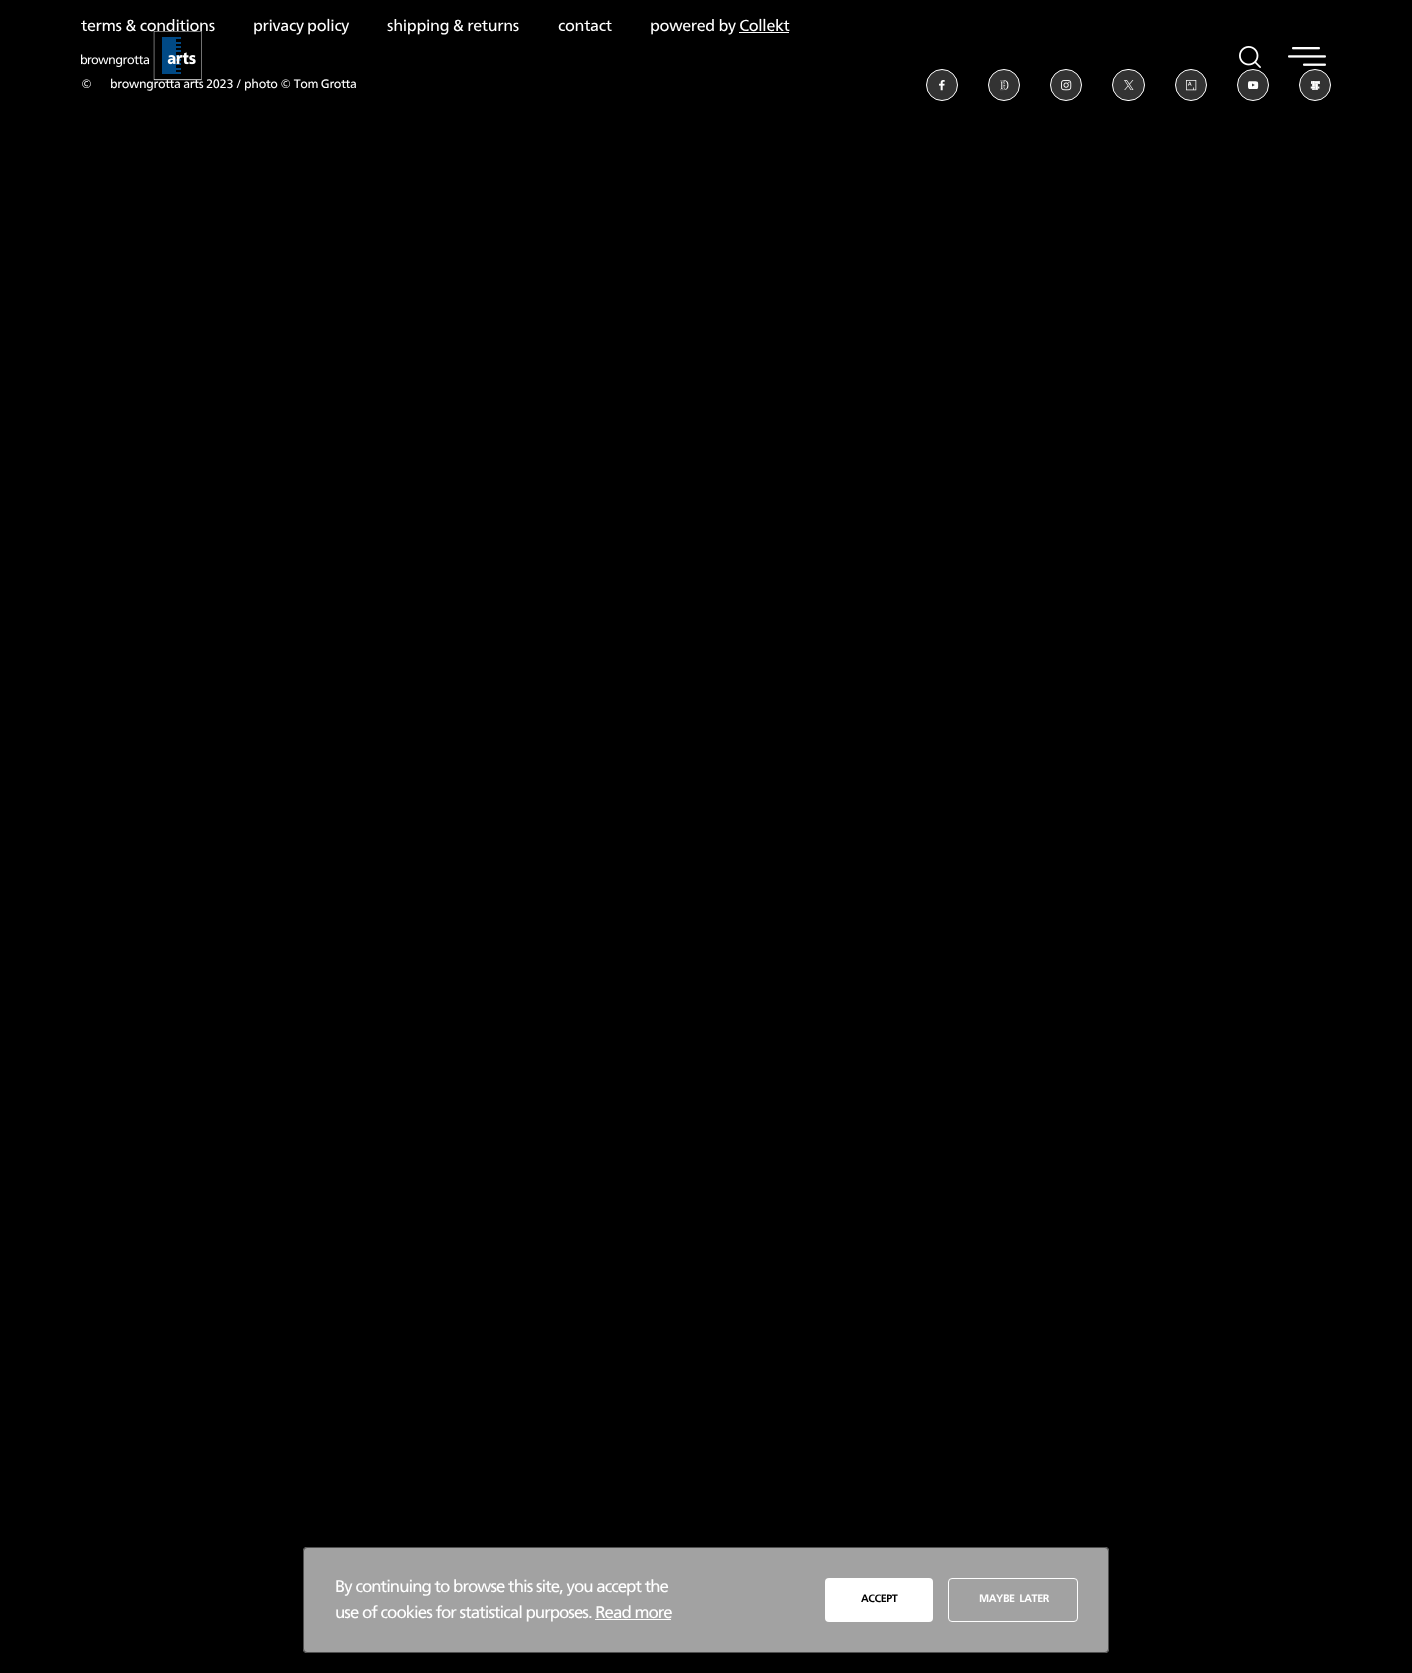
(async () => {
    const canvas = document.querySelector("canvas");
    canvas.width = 1412;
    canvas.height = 1673;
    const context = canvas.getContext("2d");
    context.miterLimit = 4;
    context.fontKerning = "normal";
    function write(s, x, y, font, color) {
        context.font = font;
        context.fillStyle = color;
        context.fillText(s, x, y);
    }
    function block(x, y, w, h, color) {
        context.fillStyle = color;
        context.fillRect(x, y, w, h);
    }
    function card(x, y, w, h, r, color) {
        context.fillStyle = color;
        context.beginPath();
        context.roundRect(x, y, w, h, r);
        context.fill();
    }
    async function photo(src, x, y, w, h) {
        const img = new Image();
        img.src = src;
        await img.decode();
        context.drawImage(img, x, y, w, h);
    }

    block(0, 0, 1412, 1673, "rgb(0, 0, 0)");
    context.letterSpacing = "-0.3px";
    write("terms & conditions", 81, 31, "16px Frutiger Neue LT", "rgb(255, 255, 255)");
    write("privacy policy", 253, 31, "16px Frutiger Neue LT", "rgb(255, 255, 255)");
    write("shipping & returns", 387, 31, "16px Frutiger Neue LT", "rgb(255, 255, 255)");
    write("contact", 558, 31, "16px Frutiger Neue LT", "rgb(255, 255, 255)");
    write("powered by Collekt", 650, 31, "16px Frutiger Neue LT", "rgb(255, 255, 255)");
    block(739, 32, 50, 1, "rgb(255, 255, 255)");
    context.letterSpacing = "0px";
    write("©", 81, 88, "12.25px Frutiger Neue LT", "rgb(255, 255, 255)");
    context.letterSpacing = "-0.3px";
    write("browngrotta arts 2023 / photo © Tom Grotta", 110, 88, "12.25px Frutiger Neue LT", "rgb(255, 255, 255)");
    context.fillStyle = "rgb(51, 51, 51)";
    context.beginPath();
    context.arc(942, 85, 15.5, 0, Math.PI * 2);
    context.fill();
    context.strokeStyle = "rgb(255, 255, 255)";
    context.stroke();
    await photo("media/1.png", 939, 80, 6, 11);
    context.beginPath();
    context.arc(1004, 85, 15.5, 0, Math.PI * 2);
    context.fill();
    context.stroke();
    await photo("media/2.png", 1000, 80, 9, 11);
    context.beginPath();
    context.arc(1066, 85, 15.5, 0, Math.PI * 2);
    context.fill();
    context.stroke();
    await photo("media/3.png", 1061, 80, 11, 11);
    context.beginPath();
    context.roundRect(1112.5, 69.5, 32, 31, 15.5);
    context.fill();
    context.stroke();
    await photo("media/4.png", 1124, 80, 10, 10);
    context.beginPath();
    context.arc(1191, 85, 15.5, 0, Math.PI * 2);
    context.fill();
    context.stroke();
    await photo("media/5.png", 1186, 80, 11, 11);
    context.beginPath();
    context.arc(1253, 85, 15.5, 0, Math.PI * 2);
    context.fill();
    context.stroke();
    await photo("media/6.png", 1248, 81, 11, 8);
    context.beginPath();
    context.arc(1315, 85, 15.5, 0, Math.PI * 2);
    context.fill();
    context.stroke();
    await photo("media/7.png", 1310, 80, 10, 10);
    await photo("media/8.png", 81, 31, 121, 50);
    await photo("media/9.png", 1239, 46, 22, 22);
    await photo("media/10.png", 1288, 47, 38, 19);
    card(303, 1547, 806, 106, 4, "rgb(162, 162, 162)");
    context.beginPath();
    context.roundRect(303.5, 1547.5, 805, 105, 3.5);
    context.strokeStyle = "rgba(0, 0, 0, 0.51)";
    context.stroke();
    context.letterSpacing = "-1px";
    write("By continuing to browse this site, you accept the", 335, 1592, "16.9px Frutiger", "rgb(255, 255, 255)");
    write("use of cookies for statistical purposes. Read more", 335, 1618, "16.9px Frutiger", "rgb(255, 255, 255)");
    block(595, 1619, 76, 1, "rgb(255, 255, 255)");
    card(825, 1578, 108, 44, 4, "rgb(255, 255, 255)");
    context.letterSpacing = "-0.4px";
    write("ACCEPT", 861, 1602, "bold 10.75px Frutiger", "rgb(0, 0, 0)");
    context.beginPath();
    context.roundRect(948.5, 1578.5, 129, 43, 3.5);
    context.strokeStyle = "rgb(255, 255, 255)";
    context.stroke();
    context.wordSpacing = "2px";
    write("MAYBE LATER", 979, 1602, "bold 10.75px Frutiger", "rgb(255, 255, 255)");
})();
